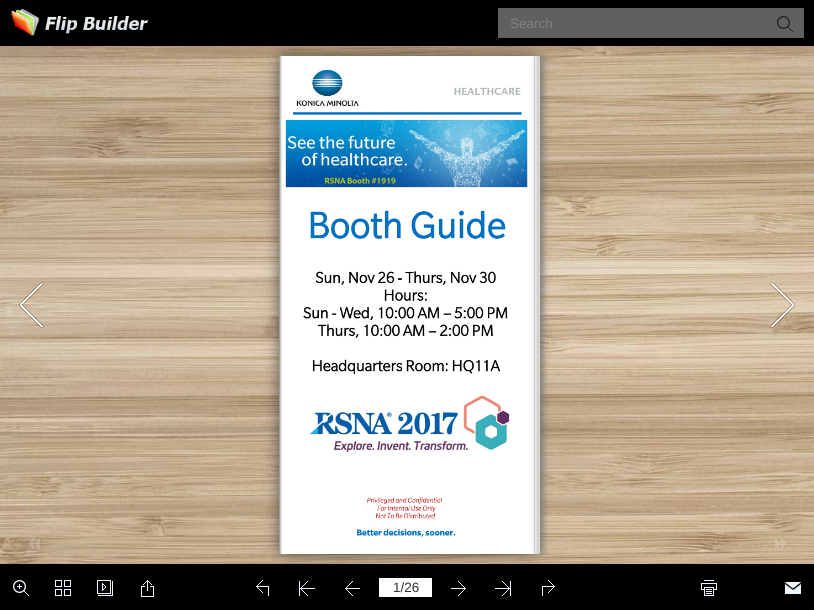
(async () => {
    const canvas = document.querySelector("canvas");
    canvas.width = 814;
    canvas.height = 610;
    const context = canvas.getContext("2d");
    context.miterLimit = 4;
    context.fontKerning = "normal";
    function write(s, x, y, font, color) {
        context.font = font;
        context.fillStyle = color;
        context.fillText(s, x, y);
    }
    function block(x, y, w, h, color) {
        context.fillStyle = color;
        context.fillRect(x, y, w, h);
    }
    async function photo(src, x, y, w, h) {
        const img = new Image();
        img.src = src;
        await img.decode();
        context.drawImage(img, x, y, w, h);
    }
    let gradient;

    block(0, 0, 814, 610, "rgb(255, 255, 255)");
    await photo("media/6.png", 0, 46, 814, 518);
    await photo("media/5.png", 282, 553, 252, 1);
    context.fillStyle = "rgba(40, 40, 40, 0.7)";
    context.filter = "blur(7.5px)";
    context.beginPath();
    context.rect(279, 56, 256, 498);
    context.fill();
    context.filter = "none";
    block(0, 0, 814, 46, "rgb(0, 0, 0)");
    await photo("media/1.png", 11, 9, 137, 27);
    block(498, 8, 306, 30, "rgb(96, 96, 96)");
    write("Search", 510, 28, "13.5px Liberation Sans", "rgb(128, 128, 128)");
    await photo("media/2.png", 777, 16, 16, 16);
    gradient = context.createLinearGradient(279, 305, 282, 305);
    gradient.addColorStop(0, "rgb(137, 137, 137)");
    gradient.addColorStop(1, "rgb(255, 255, 255)");
    context.fillStyle = gradient;
    context.fillRect(279, 56, 3, 498);
    await photo("media/5.png", 282, 553, 252, 1);
    await photo("media/3.png", 282, 56, 252, 498);
    context.fillStyle = "rgba(125, 125, 125, 0.7)";
    context.filter = "blur(2.5px)";
    context.beginPath();
    context.rect(536, 56, 8, 498);
    context.fill();
    context.filter = "none";
    block(534, 56, 5, 498, "rgb(204, 204, 204)");
    await photo("media/4.png", 535, 56, 5, 498);
    await photo("media/7.png", 19, 282, 25, 46);
    await photo("media/8.png", 770, 282, 25, 46);
    await photo("media/9.png", 28, 538, 12, 11);
    await photo("media/10.png", 775, 538, 12, 11);
    block(0, 564, 814, 46, "rgb(0, 0, 0)");
    await photo("media/11.png", 13, 580, 16, 16);
    await photo("media/12.png", 55, 580, 16, 16);
    await photo("media/13.png", 97, 580, 16, 16);
    await photo("media/14.png", 141, 580, 13, 17);
    await photo("media/15.png", 256, 580, 13, 16);
    await photo("media/16.png", 299, 581, 16, 15);
    await photo("media/17.png", 345, 581, 15, 15);
    block(379, 578, 53, 19, "rgb(255, 255, 255)");
    write("1/26", 393, 592, "13.5px Liberation Sans", "rgb(51, 51, 51)");
    await photo("media/18.png", 451, 581, 15, 15);
    await photo("media/19.png", 495, 581, 16, 15);
    await photo("media/20.png", 542, 580, 13, 16);
    await photo("media/21.png", 701, 580, 16, 16);
    await photo("media/22.png", 785, 582, 16, 12);
})();
